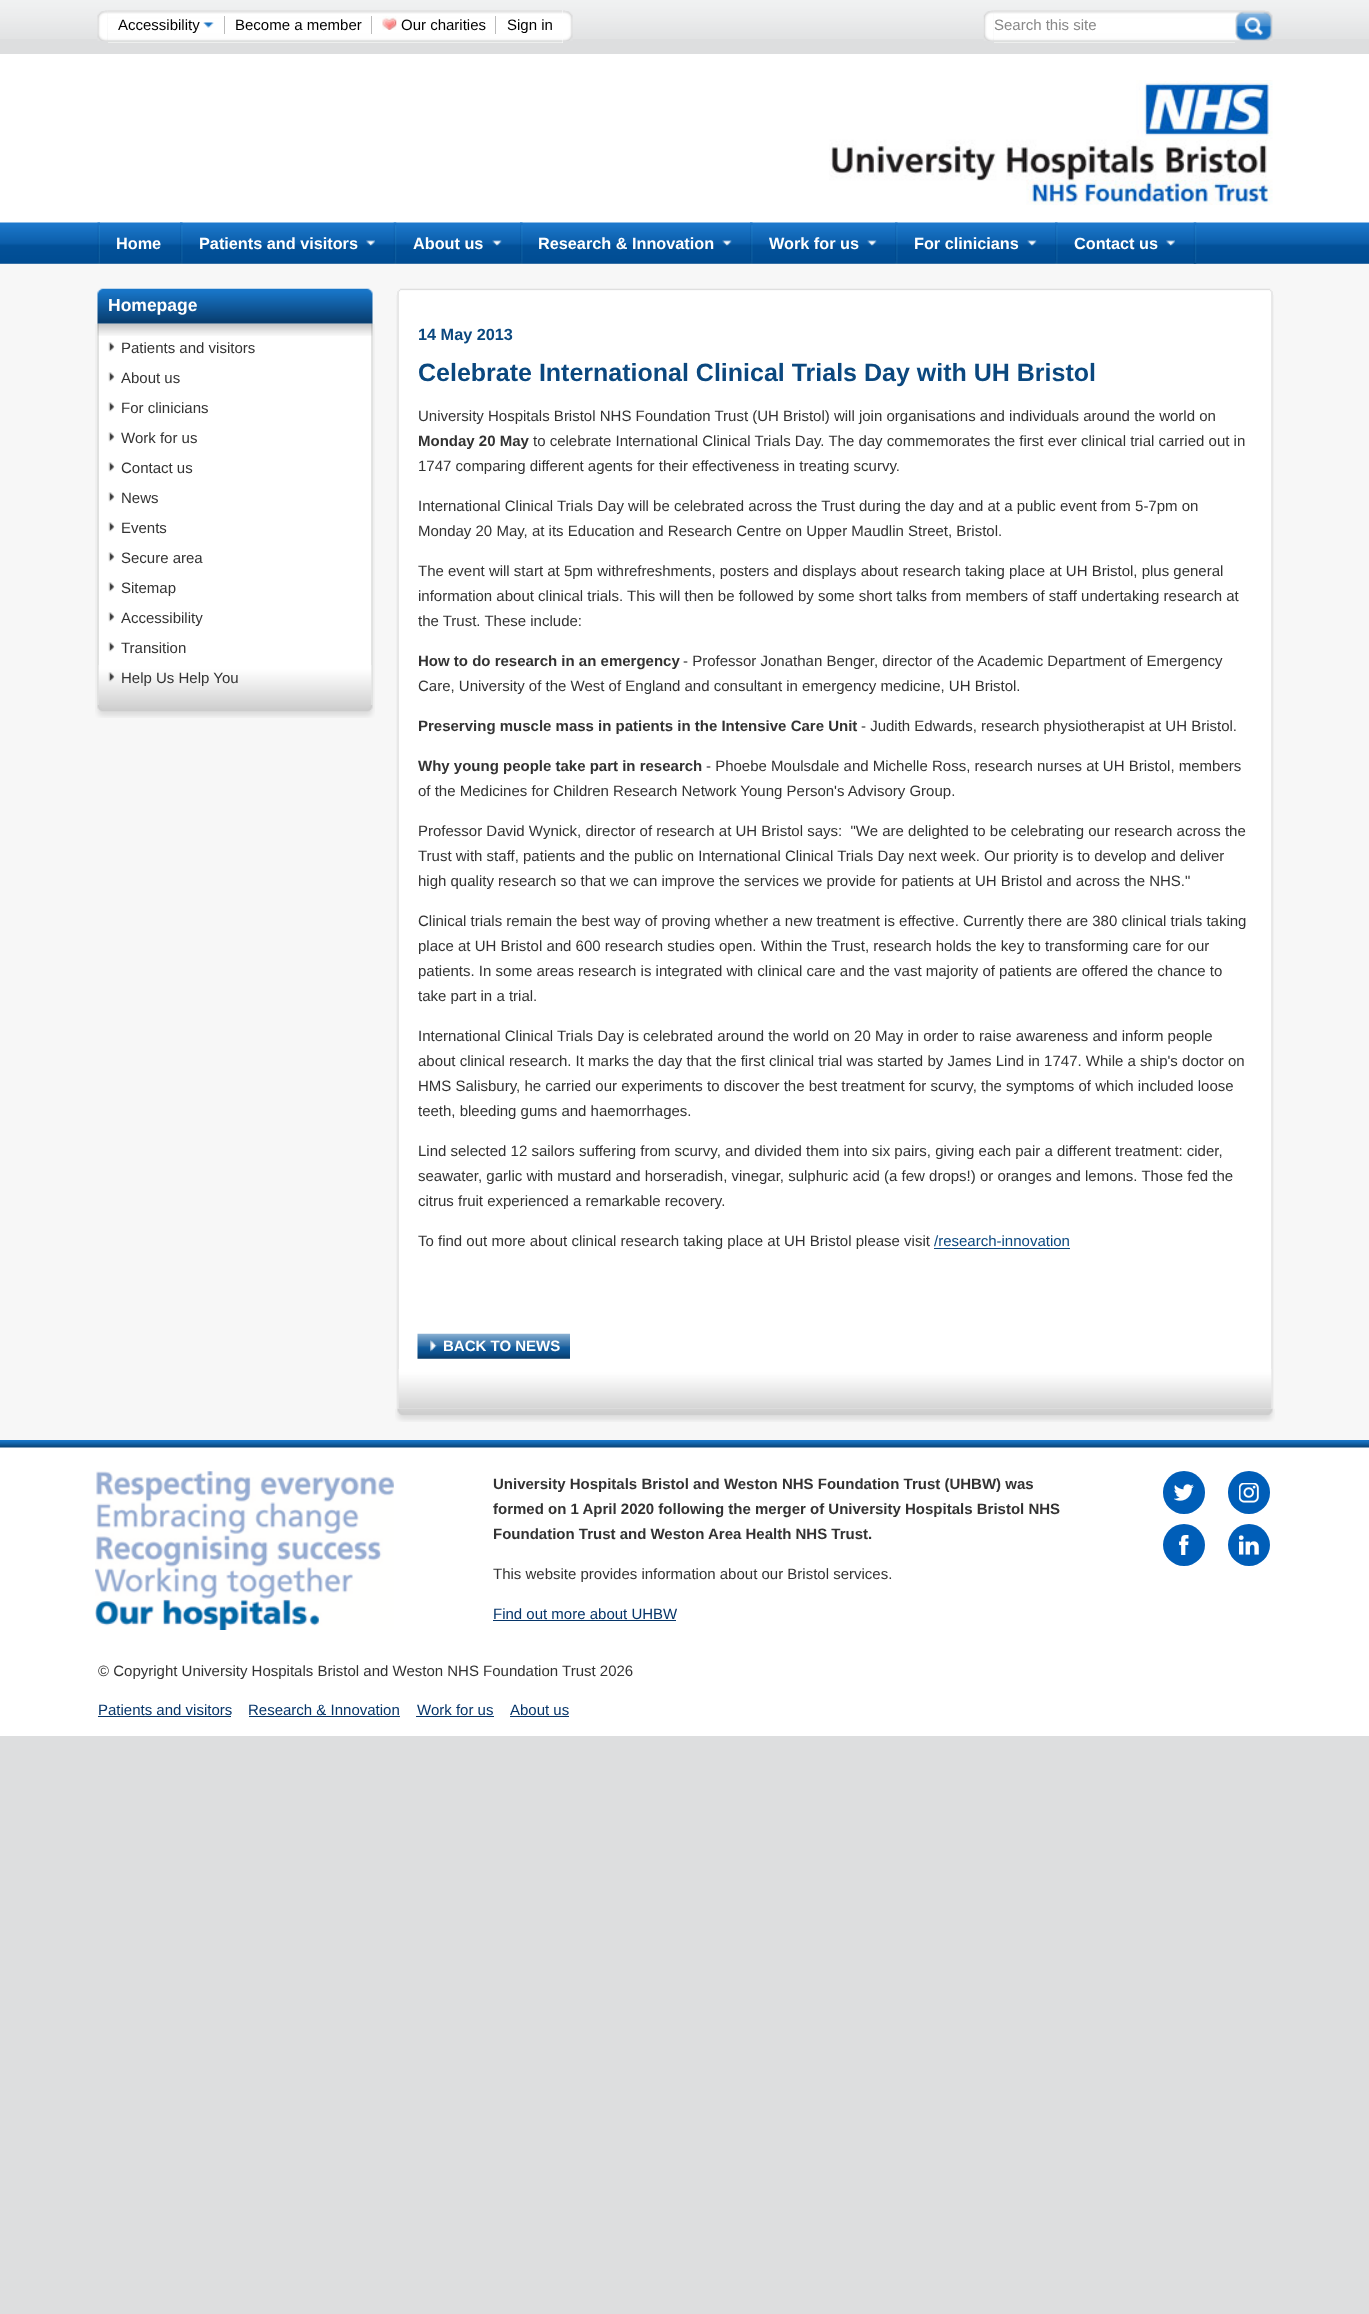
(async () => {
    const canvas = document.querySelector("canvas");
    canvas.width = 1369;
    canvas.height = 2314;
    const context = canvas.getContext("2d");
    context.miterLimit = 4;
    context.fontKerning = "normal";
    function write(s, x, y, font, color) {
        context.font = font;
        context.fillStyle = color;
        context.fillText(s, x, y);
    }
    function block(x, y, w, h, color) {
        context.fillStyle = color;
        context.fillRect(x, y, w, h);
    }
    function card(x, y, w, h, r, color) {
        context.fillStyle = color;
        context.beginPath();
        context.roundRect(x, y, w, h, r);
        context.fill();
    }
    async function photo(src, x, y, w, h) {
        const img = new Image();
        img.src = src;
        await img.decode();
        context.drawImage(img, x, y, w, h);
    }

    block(0, 0, 1369, 2314, "rgb(221, 222, 223)");
    await photo("media/1.png", 0, 0, 1369, 39);
    await photo("media/2.png", 97, 10, 11, 31);
    block(108, 10, 455, 33, "rgb(255, 255, 255)");
    await photo("media/3.png", 107, 10, 456, 33);
    block(224, 16, 1, 18, "rgb(187, 187, 187)");
    write("Accessibility", 118, 30, "15px Liberation Sans", "rgb(0, 0, 0)");
    await photo("media/4.png", 203, 22, 11, 6);
    block(371, 16, 1, 18, "rgb(187, 187, 187)");
    write("Become a member", 235, 30, "15px Liberation Sans", "rgb(0, 0, 0)");
    block(495, 16, 1, 18, "rgb(187, 187, 187)");
    await photo("media/5.png", 382, 16, 15, 14);
    write("Our charities", 401, 30, "15px Liberation Sans", "rgb(0, 0, 0)");
    write("Sign in", 507, 30, "15px Liberation Sans", "rgb(0, 0, 0)");
    await photo("media/6.png", 563, 10, 10, 31);
    block(994, 42, 241, 1, "rgb(255, 255, 255)");
    await photo("media/8.png", 993, 10, 242, 33);
    await photo("media/7.png", 983, 10, 11, 31);
    write("Search this site", 994, 30, "15px Liberation Sans", "rgb(136, 136, 136)");
    await photo("media/9.png", 1235, 10, 38, 31);
    block(0, 54, 1369, 169, "rgb(255, 255, 255)");
    await photo("media/10.png", 829, 80, 444, 125);
    await photo("media/11.png", 0, 222, 1369, 42);
    await photo("media/12.png", 97, 222, 3, 42);
    write("Home", 116, 249, "bold 16.25px Liberation Sans", "rgb(255, 255, 255)");
    await photo("media/13.png", 180, 222, 3, 42);
    write("Patients and visitors", 199, 249, "bold 16.25px Liberation Sans", "rgb(255, 255, 255)");
    await photo("media/14.png", 366, 240, 9, 6);
    await photo("media/15.png", 393, 222, 4, 42);
    write("About us", 413, 249, "bold 16.25px Liberation Sans", "rgb(255, 255, 255)");
    await photo("media/16.png", 492, 240, 10, 6);
    await photo("media/13.png", 520, 222, 3, 42);
    write("Research & Innovation", 538, 249, "bold 16.25px Liberation Sans", "rgb(255, 255, 255)");
    await photo("media/16.png", 722, 240, 10, 6);
    await photo("media/13.png", 750, 222, 3, 42);
    write("Work for us", 769, 249, "bold 16.25px Liberation Sans", "rgb(255, 255, 255)");
    await photo("media/16.png", 867, 240, 10, 6);
    await photo("media/13.png", 895, 222, 3, 42);
    write("For clinicians", 914, 249, "bold 16.25px Liberation Sans", "rgb(255, 255, 255)");
    await photo("media/16.png", 1027, 240, 10, 6);
    await photo("media/13.png", 1055, 222, 3, 42);
    write("Contact us", 1074, 249, "bold 16.25px Liberation Sans", "rgb(255, 255, 255)");
    await photo("media/14.png", 1166, 240, 9, 6);
    await photo("media/17.png", 1193, 222, 4, 42);
    block(0, 264, 1369, 1176, "rgb(247, 247, 247)");
    await photo("media/18.png", 97, 288, 276, 36);
    write("Homepage", 108, 311, "bold 17.5px Liberation Sans", "rgb(255, 255, 255)");
    await photo("media/19.png", 95, 323, 280, 382);
    await photo("media/20.png", 97, 323, 276, 13);
    await photo("media/21.png", 98, 665, 274, 40);
    await photo("media/22.png", 108, 342, 7, 10);
    write("Patients and visitors", 121, 353, "15px Liberation Sans", "rgb(51, 51, 51)");
    await photo("media/22.png", 108, 372, 7, 10);
    write("About us", 121, 383, "15px Liberation Sans", "rgb(51, 51, 51)");
    await photo("media/22.png", 108, 402, 7, 10);
    write("For clinicians", 121, 413, "15px Liberation Sans", "rgb(51, 51, 51)");
    await photo("media/22.png", 108, 432, 7, 10);
    write("Work for us", 121, 443, "15px Liberation Sans", "rgb(51, 51, 51)");
    await photo("media/22.png", 108, 462, 7, 10);
    write("Contact us", 121, 473, "15px Liberation Sans", "rgb(51, 51, 51)");
    await photo("media/22.png", 108, 492, 7, 10);
    write("News", 121, 503, "15px Liberation Sans", "rgb(51, 51, 51)");
    await photo("media/22.png", 108, 522, 7, 10);
    write("Events", 121, 533, "15px Liberation Sans", "rgb(51, 51, 51)");
    await photo("media/22.png", 108, 552, 7, 10);
    write("Secure area", 121, 563, "15px Liberation Sans", "rgb(51, 51, 51)");
    await photo("media/22.png", 108, 582, 7, 10);
    write("Sitemap", 121, 593, "15px Liberation Sans", "rgb(51, 51, 51)");
    await photo("media/22.png", 108, 612, 7, 10);
    write("Accessibility", 121, 623, "15px Liberation Sans", "rgb(51, 51, 51)");
    await photo("media/22.png", 108, 642, 7, 10);
    write("Transition", 121, 653, "15px Liberation Sans", "rgb(51, 51, 51)");
    await photo("media/23.png", 108, 672, 7, 10);
    write("Help Us Help You", 121, 683, "15px Liberation Sans", "rgb(51, 51, 51)");
    await photo("media/24.png", 95, 705, 280, 13);
    await photo("media/25.png", 397, 288, 876, 7);
    await photo("media/26.png", 396, 295, 878, 1114);
    await photo("media/27.png", 398, 1369, 874, 40);
    write("14 May 2013", 418, 340, "bold 16.25px Liberation Sans", "rgb(11, 72, 127)");
    write("Celebrate International Clinical Trials Day with UH Bristol", 418, 381, "bold 25px Liberation Sans", "rgb(11, 72, 127)");
    write("University Hospitals Bristol NHS Foundation Trust (UH Bristol) will join organisations and individuals around the world on", 418, 421, "15px Liberation Sans", "rgb(51, 51, 51)");
    write("Monday 20 May", 418, 446, "bold 15px Liberation Sans", "rgb(51, 51, 51)");
    write("to celebrate International Clinical Trials Day. The day commemorates the first ever clinical trial carried out in", 533, 446, "15px Liberation Sans", "rgb(51, 51, 51)");
    write("1747 comparing different agents for their effectiveness in treating scurvy.", 418, 471, "15px Liberation Sans", "rgb(51, 51, 51)");
    write("International Clinical Trials Day will be celebrated across the Trust during the day and at a public event from 5-7pm on", 418, 511, "15px Liberation Sans", "rgb(51, 51, 51)");
    write("Monday 20 May, at its Education and Research Centre on Upper Maudlin Street, Bristol.", 418, 536, "15px Liberation Sans", "rgb(51, 51, 51)");
    write("The event will start at 5pm withrefreshments, posters and displays about research taking place at UH Bristol, plus general", 418, 576, "15px Liberation Sans", "rgb(51, 51, 51)");
    write("information about clinical trials. This will then be followed by some short talks from members of staff undertaking research at", 418, 601, "15px Liberation Sans", "rgb(51, 51, 51)");
    write("the Trust. These include:", 418, 626, "15px Liberation Sans", "rgb(51, 51, 51)");
    write("How to do research in an emergency", 418, 666, "bold 15px Liberation Sans", "rgb(51, 51, 51)");
    write("- Professor Jonathan Benger, director of the Academic Department of Emergency", 683, 666, "15px Liberation Sans", "rgb(51, 51, 51)");
    write("Care, University of the West of England and consultant in emergency medicine, UH Bristol.", 418, 691, "15px Liberation Sans", "rgb(51, 51, 51)");
    write("Preserving muscle mass in patients in the Intensive Care Unit", 418, 731, "bold 15px Liberation Sans", "rgb(51, 51, 51)");
    write("- Judith Edwards, research physiotherapist at UH Bristol.", 861, 731, "15px Liberation Sans", "rgb(51, 51, 51)");
    write("Why young people take part in research", 418, 771, "bold 15px Liberation Sans", "rgb(51, 51, 51)");
    write("- Phoebe Moulsdale and Michelle Ross, research nurses at UH Bristol, members", 706, 771, "15px Liberation Sans", "rgb(51, 51, 51)");
    write("of the Medicines for Children Research Network Young Person's Advisory Group.", 418, 796, "15px Liberation Sans", "rgb(51, 51, 51)");
    write("Professor David Wynick, director of research at UH Bristol says:  \"We are delighted to be celebrating our research across the", 418, 836, "15px Liberation Sans", "rgb(51, 51, 51)");
    write("Trust with staff, patients and the public on International Clinical Trials Day next week. Our priority is to develop and deliver", 418, 861, "15px Liberation Sans", "rgb(51, 51, 51)");
    write("high quality research so that we can improve the services we provide for patients at UH Bristol and across the NHS.\"", 418, 886, "15px Liberation Sans", "rgb(51, 51, 51)");
    write("Clinical trials remain the best way of proving whether a new treatment is effective. Currently there are 380 clinical trials taking", 418, 926, "15px Liberation Sans", "rgb(51, 51, 51)");
    write("place at UH Bristol and 600 research studies open. Within the Trust, research holds the key to transforming care for our", 418, 951, "15px Liberation Sans", "rgb(51, 51, 51)");
    write("patients. In some areas research is integrated with clinical care and the vast majority of patients are offered the chance to", 418, 976, "15px Liberation Sans", "rgb(51, 51, 51)");
    write("take part in a trial.", 418, 1001, "15px Liberation Sans", "rgb(51, 51, 51)");
    write("International Clinical Trials Day is celebrated around the world on 20 May in order to raise awareness and inform people", 418, 1041, "15px Liberation Sans", "rgb(51, 51, 51)");
    write("about clinical research. It marks the day that the first clinical trial was started by James Lind in 1747. While a ship's doctor on", 418, 1066, "15px Liberation Sans", "rgb(51, 51, 51)");
    write("HMS Salisbury, he carried our experiments to discover the best treatment for scurvy, the symptoms of which included loose", 418, 1091, "15px Liberation Sans", "rgb(51, 51, 51)");
    write("teeth, bleeding gums and haemorrhages.", 418, 1116, "15px Liberation Sans", "rgb(51, 51, 51)");
    write("Lind selected 12 sailors suffering from scurvy, and divided them into six pairs, giving each pair a different treatment: cider,", 418, 1156, "15px Liberation Sans", "rgb(51, 51, 51)");
    write("seawater, garlic with mustard and horseradish, vinegar, sulphuric acid (a few drops!) or oranges and lemons. Those fed the", 418, 1181, "15px Liberation Sans", "rgb(51, 51, 51)");
    write("citrus fruit experienced a remarkable recovery.", 418, 1206, "15px Liberation Sans", "rgb(51, 51, 51)");
    write("To find out more about clinical research taking place at UH Bristol please visit", 418, 1246, "15px Liberation Sans", "rgb(51, 51, 51)");
    write("/research-innovation", 934, 1246, "15px Liberation Sans", "rgb(11, 72, 127)");
    block(934, 1248, 136, 1, "rgb(11, 72, 127)");
    await photo("media/28.png", 417, 1333, 153, 26);
    await photo("media/29.png", 430, 1340, 7, 12);
    write("BACK TO NEWS", 443, 1351, "bold 15px Liberation Sans", "rgb(255, 255, 255)");
    await photo("media/30.png", 395, 1408, 880, 14);
    block(0, 1447, 1369, 289, "rgb(255, 255, 255)");
    await photo("media/31.png", 0, 1440, 1369, 8);
    await photo("media/32.png", 95, 1471, 299, 159);
    write("University Hospitals Bristol and Weston NHS Foundation Trust (UHBW) was", 493, 1489, "bold 15px Liberation Sans", "rgb(51, 51, 51)");
    write("formed on 1 April 2020 following the merger of University Hospitals Bristol NHS", 493, 1514, "bold 15px Liberation Sans", "rgb(51, 51, 51)");
    write("Foundation Trust and Weston Area Health NHS Trust.", 493, 1539, "bold 15px Liberation Sans", "rgb(51, 51, 51)");
    write("This website provides information about our Bristol services.", 493, 1579, "15px Liberation Sans", "rgb(51, 51, 51)");
    write("Find out more about UHBW", 493, 1619, "15px Liberation Sans", "rgb(6, 53, 105)");
    block(493, 1620, 183, 1, "rgb(6, 53, 105)");
    card(1163, 1471, 42, 43, 21, "rgb(0, 94, 184)");
    await photo("media/33.png", 1174, 1484, 20, 17);
    card(1228, 1471, 42, 43, 21, "rgb(0, 94, 184)");
    await photo("media/34.png", 1239, 1483, 20, 20);
    context.beginPath();
    context.arc(1184, 1545, 21, 0, Math.PI * 2);
    context.fill();
    await photo("media/35.png", 1179, 1535, 10, 20);
    context.beginPath();
    context.arc(1249, 1545, 21, 0, Math.PI * 2);
    context.fill();
    await photo("media/36.png", 1239, 1535, 20, 20);
    write("© Copyright University Hospitals Bristol and Weston NHS Foundation Trust 2026", 98, 1676, "15px Liberation Sans", "rgb(51, 51, 51)");
    write("Patients and visitors", 98, 1715, "15px Liberation Sans", "rgb(6, 53, 105)");
    block(98, 1716, 133, 1, "rgb(6, 53, 105)");
    write("Research & Innovation", 248, 1715, "15px Liberation Sans", "rgb(6, 53, 105)");
    block(249, 1716, 151, 1, "rgb(6, 53, 105)");
    write("Work for us", 417, 1715, "15px Liberation Sans", "rgb(6, 53, 105)");
    block(416, 1716, 78, 1, "rgb(6, 53, 105)");
    write("About us", 510, 1715, "15px Liberation Sans", "rgb(6, 53, 105)");
    block(510, 1716, 59, 1, "rgb(6, 53, 105)");
})();
